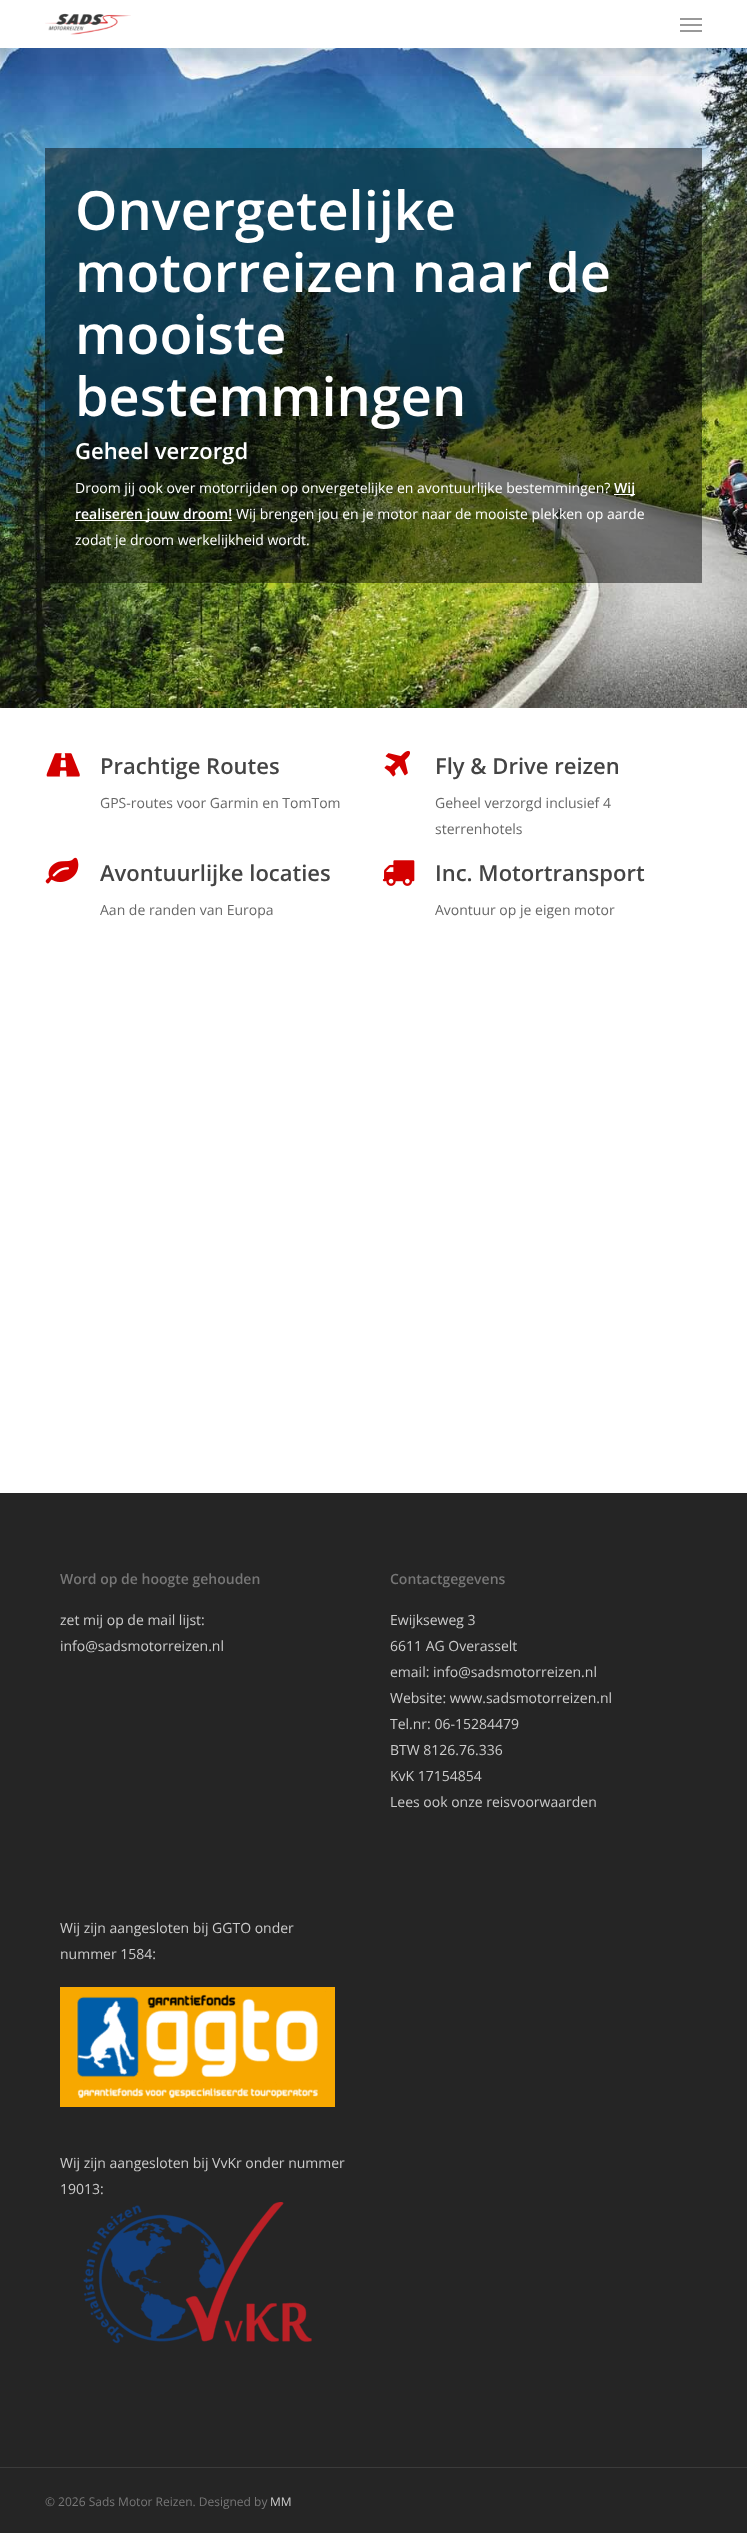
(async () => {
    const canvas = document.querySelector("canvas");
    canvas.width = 747;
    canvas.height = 2533;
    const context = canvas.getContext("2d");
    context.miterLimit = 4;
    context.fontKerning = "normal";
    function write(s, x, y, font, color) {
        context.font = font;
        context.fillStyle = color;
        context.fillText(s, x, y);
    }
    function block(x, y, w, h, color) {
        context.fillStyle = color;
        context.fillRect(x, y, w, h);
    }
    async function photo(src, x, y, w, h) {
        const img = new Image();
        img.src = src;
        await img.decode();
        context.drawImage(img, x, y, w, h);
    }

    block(0, 0, 747, 2533, "rgb(255, 255, 255)");
    await photo("media/2.png", 0, 48, 747, 660);
    context.save();
    context.beginPath();
    context.rect(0, 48, 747, 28);
    context.clip();
    context.fillStyle = "rgba(0, 0, 0, 0.15)";
    context.filter = "blur(22.5px)";
    context.beginPath();
    context.rect(0, 3, 747, 48);
    context.fill();
    context.filter = "none";
    context.restore();
    await photo("media/1.png", 45, 13, 86, 22);
    block(680, 18, 22, 2, "rgb(153, 153, 153)");
    block(680, 30, 22, 2, "rgb(153, 153, 153)");
    block(680, 24, 22, 2, "rgb(153, 153, 153)");
    block(45, 148, 657, 435, "rgba(0, 0, 0, 0.48)");
    write("Onvergetelijke", 75, 230, "600 54px Open Sans", "rgb(255, 255, 255)");
    write("motorreizen naar de", 75, 292, "600 54px Open Sans", "rgb(255, 255, 255)");
    write("mooiste", 75, 354, "600 54px Open Sans", "rgb(255, 255, 255)");
    write("bestemmingen", 75, 416, "600 54px Open Sans", "rgb(255, 255, 255)");
    write("Geheel verzorgd", 75, 459, "600 22px Open Sans", "rgb(255, 255, 255)");
    write("Droom jij ook over motorrijden op onvergetelijke en avontuurlijke bestemmingen?", 75, 493, "14px Open Sans", "rgb(255, 255, 255)");
    block(614, 494, 21, 1, "rgb(255, 255, 255)");
    write("Wij", 614, 493, "600 14px Open Sans", "rgb(255, 255, 255)");
    block(75, 520, 157, 1, "rgb(255, 255, 255)");
    write("realiseren jouw droom!", 75, 519, "600 14px Open Sans", "rgb(255, 255, 255)");
    write("Wij brengen jou en je motor naar de mooiste plekken op aarde", 236, 519, "14px Open Sans", "rgb(255, 255, 255)");
    write("zodat je droom werkelijkheid wordt.", 75, 545, "14px Open Sans", "rgb(255, 255, 255)");
    await photo("media/3.png", 46, 753, 34, 24);
    write("Prachtige Routes", 100, 774, "600 22px Open Sans", "rgb(68, 68, 68)");
    write("GPS-routes voor Garmin en TomTom", 100, 808, "14px Open Sans", "rgb(103, 103, 103)");
    await photo("media/4.png", 384, 750, 26, 27);
    write("Fly & Drive reizen", 435, 774, "600 22px Open Sans", "rgb(68, 68, 68)");
    write("Geheel verzorgd inclusief 4", 435, 808, "14px Open Sans", "rgb(103, 103, 103)");
    write("sterrenhotels", 435, 834, "14px Open Sans", "rgb(103, 103, 103)");
    await photo("media/5.png", 45, 857, 34, 27);
    write("Avontuurlijke locaties", 100, 881, "600 22px Open Sans", "rgb(68, 68, 68)");
    write("Aan de randen van Europa", 100, 915, "14px Open Sans", "rgb(103, 103, 103)");
    await photo("media/6.png", 382, 860, 33, 26);
    write("Inc. Motortransport", 435, 881, "600 22px Open Sans", "rgb(68, 68, 68)");
    write("Avontuur op je eigen motor", 435, 915, "14px Open Sans", "rgb(103, 103, 103)");
    block(0, 1493, 747, 1040, "rgb(37, 37, 37)");
    write("Word op de hoogte gehouden", 60, 1584, "600 14px Open Sans", "rgb(119, 119, 119)");
    write("zet mij op de mail lijst:", 60, 1625, "14px Open Sans", "rgb(204, 204, 204)");
    write("info@sadsmotorreizen.nl", 60, 1651, "14px Open Sans", "rgb(204, 204, 204)");
    write("Contactgegevens", 390, 1584, "600 14px Open Sans", "rgb(119, 119, 119)");
    write("Ewijkseweg 3", 390, 1625, "14px Open Sans", "rgb(204, 204, 204)");
    write("6611 AG Overasselt", 390, 1651, "14px Open Sans", "rgb(204, 204, 204)");
    write("email: info@sadsmotorreizen.nl", 390, 1677, "14px Open Sans", "rgb(204, 204, 204)");
    write("Website: www.sadsmotorreizen.nl", 390, 1703, "14px Open Sans", "rgb(204, 204, 204)");
    write("Tel.nr: 06-15284479", 390, 1729, "14px Open Sans", "rgb(204, 204, 204)");
    write("BTW 8126.76.336", 390, 1755, "14px Open Sans", "rgb(204, 204, 204)");
    write("KvK 17154854", 390, 1781, "14px Open Sans", "rgb(204, 204, 204)");
    write("Lees ook onze reisvoorwaarden", 390, 1807, "14px Open Sans", "rgb(204, 204, 204)");
    write("Wij zijn aangesloten bij GGTO onder", 60, 1933, "14px Open Sans", "rgb(204, 204, 204)");
    write("nummer 1584:", 60, 1959, "14px Open Sans", "rgb(204, 204, 204)");
    await photo("media/7.png", 60, 1987, 275, 120);
    write("Wij zijn aangesloten bij VvKr onder nummer", 60, 2168, "14px Open Sans", "rgb(204, 204, 204)");
    write("19013:", 60, 2194, "14px Open Sans", "rgb(204, 204, 204)");
    await photo("media/8.png", 83, 2202, 229, 142);
    block(0, 2467, 747, 1, "rgb(59, 59, 59)");
    write("© 2026 Sads Motor Reizen. Designed by", 45, 2506, "12px Open Sans", "rgb(119, 119, 119)");
    write("MM", 270, 2506, "12px Open Sans", "rgb(204, 204, 204)");
})();
